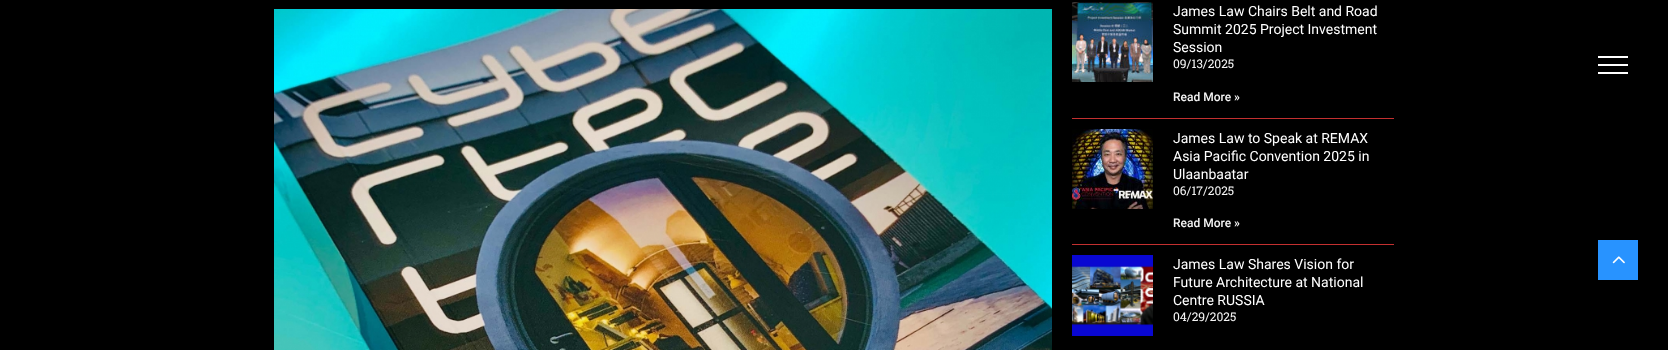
(async () => {
    const canvas = document.querySelector("canvas");
    canvas.width = 1668;
    canvas.height = 350;
    const context = canvas.getContext("2d");
    context.miterLimit = 4;
    context.fontKerning = "normal";
    function write(s, x, y, font, color) {
        context.font = font;
        context.fillStyle = color;
        context.fillText(s, x, y);
    }
    function block(x, y, w, h, color) {
        context.fillStyle = color;
        context.fillRect(x, y, w, h);
    }
    async function photo(src, x, y, w, h) {
        const img = new Image();
        img.src = src;
        await img.decode();
        context.drawImage(img, x, y, w, h);
    }

    block(0, 0, 1668, 350, "rgb(0, 0, 0)");
    await photo("media/1.png", 274, 9, 778, 341);
    block(1072, 118, 322, 1, "rgb(195, 48, 48)");
    await photo("media/2.png", 1072, 2, 81, 80);
    write("James Law Chairs Belt and Road", 1173, 16, "14px Roboto", "rgb(255, 255, 255)");
    write("Summit 2025 Project Investment", 1173, 34, "14px Roboto", "rgb(255, 255, 255)");
    write("Session", 1173, 52, "14px Roboto", "rgb(255, 255, 255)");
    write("09/13/2025", 1173, 68, "12px Roboto Slab", "rgb(245, 245, 245)");
    write("Read More »", 1173, 101, "500 12px Roboto", "rgb(245, 245, 245)");
    block(1072, 244, 322, 1, "rgb(195, 48, 48)");
    await photo("media/3.png", 1072, 129, 81, 80);
    write("James Law to Speak at REMAX", 1173, 143, "14px Roboto", "rgb(255, 255, 255)");
    write("Asia Pacific Convention 2025 in", 1173, 161, "14px Roboto", "rgb(255, 255, 255)");
    write("Ulaanbaatar", 1173, 179, "14px Roboto", "rgb(255, 255, 255)");
    write("06/17/2025", 1173, 195, "12px Roboto Slab", "rgb(245, 245, 245)");
    write("Read More »", 1173, 227, "500 12px Roboto", "rgb(245, 245, 245)");
    await photo("media/4.png", 1072, 255, 81, 81);
    write("James Law Shares Vision for", 1173, 269, "14px Roboto", "rgb(255, 255, 255)");
    write("Future Architecture at National", 1173, 287, "14px Roboto", "rgb(255, 255, 255)");
    write("Centre RUSSIA", 1173, 305, "14px Roboto", "rgb(255, 255, 255)");
    write("04/29/2025", 1173, 321, "12px Roboto Slab", "rgb(245, 245, 245)");
    block(1598, 64, 30, 2, "rgb(255, 255, 255)");
    block(1598, 56, 30, 2, "rgb(255, 255, 255)");
    block(1598, 72, 30, 2, "rgb(255, 255, 255)");
    block(1598, 240, 40, 40, "rgb(40, 147, 255)");
    await photo("media/5.png", 1612, 256, 13, 8);
})();
